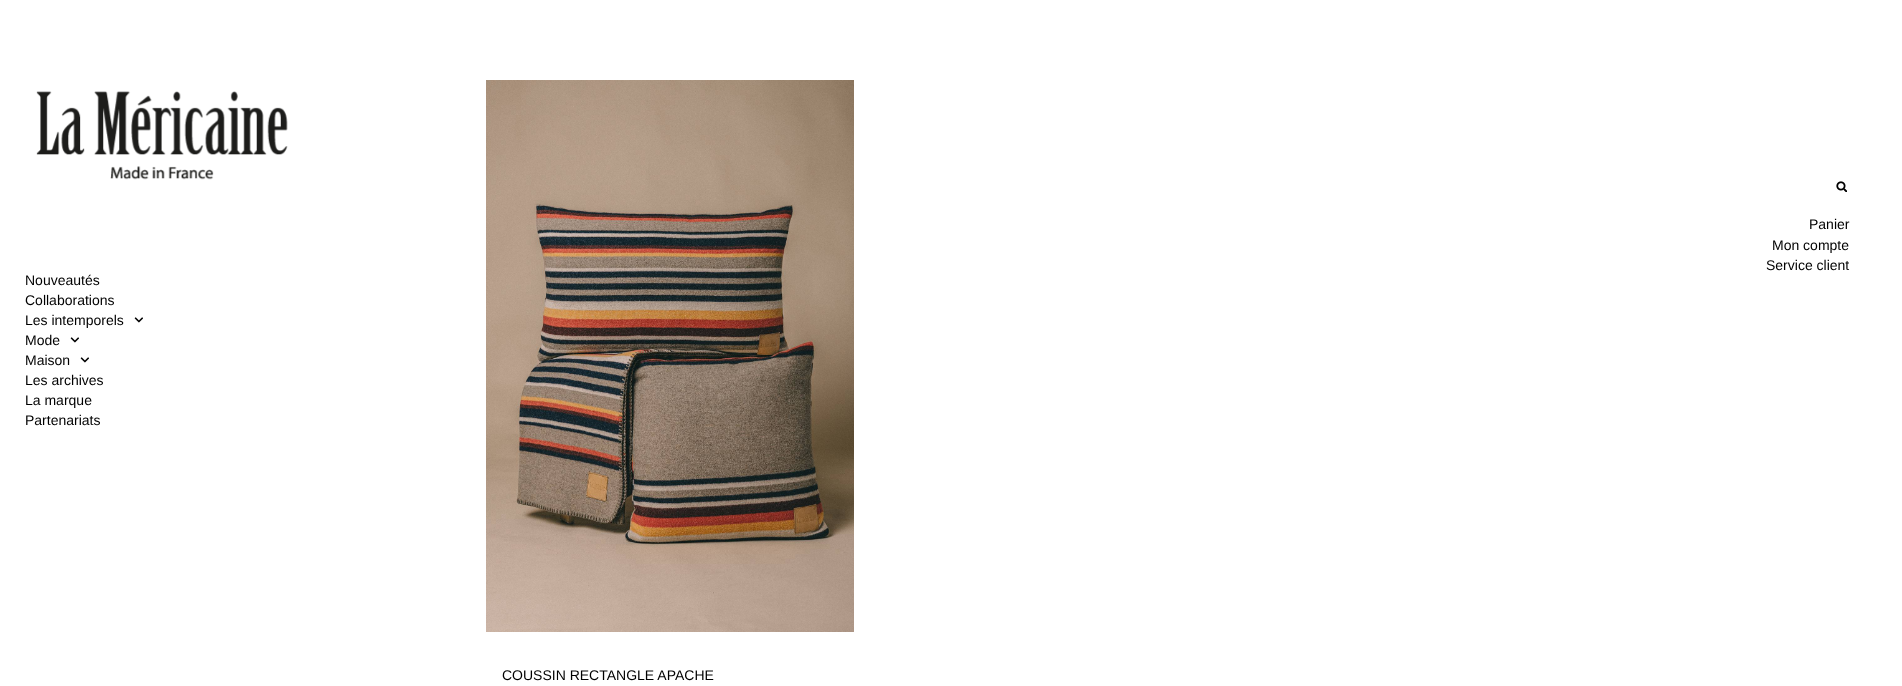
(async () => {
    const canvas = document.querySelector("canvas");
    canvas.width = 1902;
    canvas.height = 686;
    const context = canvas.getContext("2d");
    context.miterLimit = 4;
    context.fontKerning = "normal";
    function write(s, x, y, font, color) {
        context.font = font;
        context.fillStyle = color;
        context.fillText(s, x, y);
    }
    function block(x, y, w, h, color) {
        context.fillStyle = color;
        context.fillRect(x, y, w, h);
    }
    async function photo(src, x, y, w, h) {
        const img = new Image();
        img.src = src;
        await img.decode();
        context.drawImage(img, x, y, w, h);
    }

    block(0, 0, 1902, 686, "rgb(255, 255, 255)");
    await photo("media/1.png", 1836, 181, 11, 11);
    write("Panier", 1809, 229, "14px Liberation Sans", "rgb(0, 0, 0)");
    write("Mon compte", 1772, 250, "14px Liberation Sans", "rgb(0, 0, 0)");
    write("Service client", 1766, 270, "14px Liberation Sans", "rgb(0, 0, 0)");
    await photo("media/2.png", 36, 91, 252, 89);
    write("Nouveautés", 25, 285, "14px Liberation Sans", "rgb(0, 0, 0)");
    write("Collaborations", 25, 305, "14px Liberation Sans", "rgb(0, 0, 0)");
    write("Les intemporels", 25, 325, "14px Liberation Sans", "rgb(0, 0, 0)");
    await photo("media/3.png", 134, 317, 9, 6);
    write("Mode", 25, 345, "14px Liberation Sans", "rgb(0, 0, 0)");
    await photo("media/3.png", 70, 337, 9, 6);
    write("Maison", 25, 365, "14px Liberation Sans", "rgb(0, 0, 0)");
    await photo("media/3.png", 80, 357, 9, 6);
    write("Les archives", 25, 385, "14px Liberation Sans", "rgb(0, 0, 0)");
    write("La marque", 25, 405, "14px Liberation Sans", "rgb(0, 0, 0)");
    write("Partenariats", 25, 425, "14px Liberation Sans", "rgb(0, 0, 0)");
    await photo("media/4.png", 486, 80, 368, 552);
    write("COUSSIN RECTANGLE APACHE", 502, 680, "14px Liberation Sans", "rgb(0, 0, 0)");
})();
